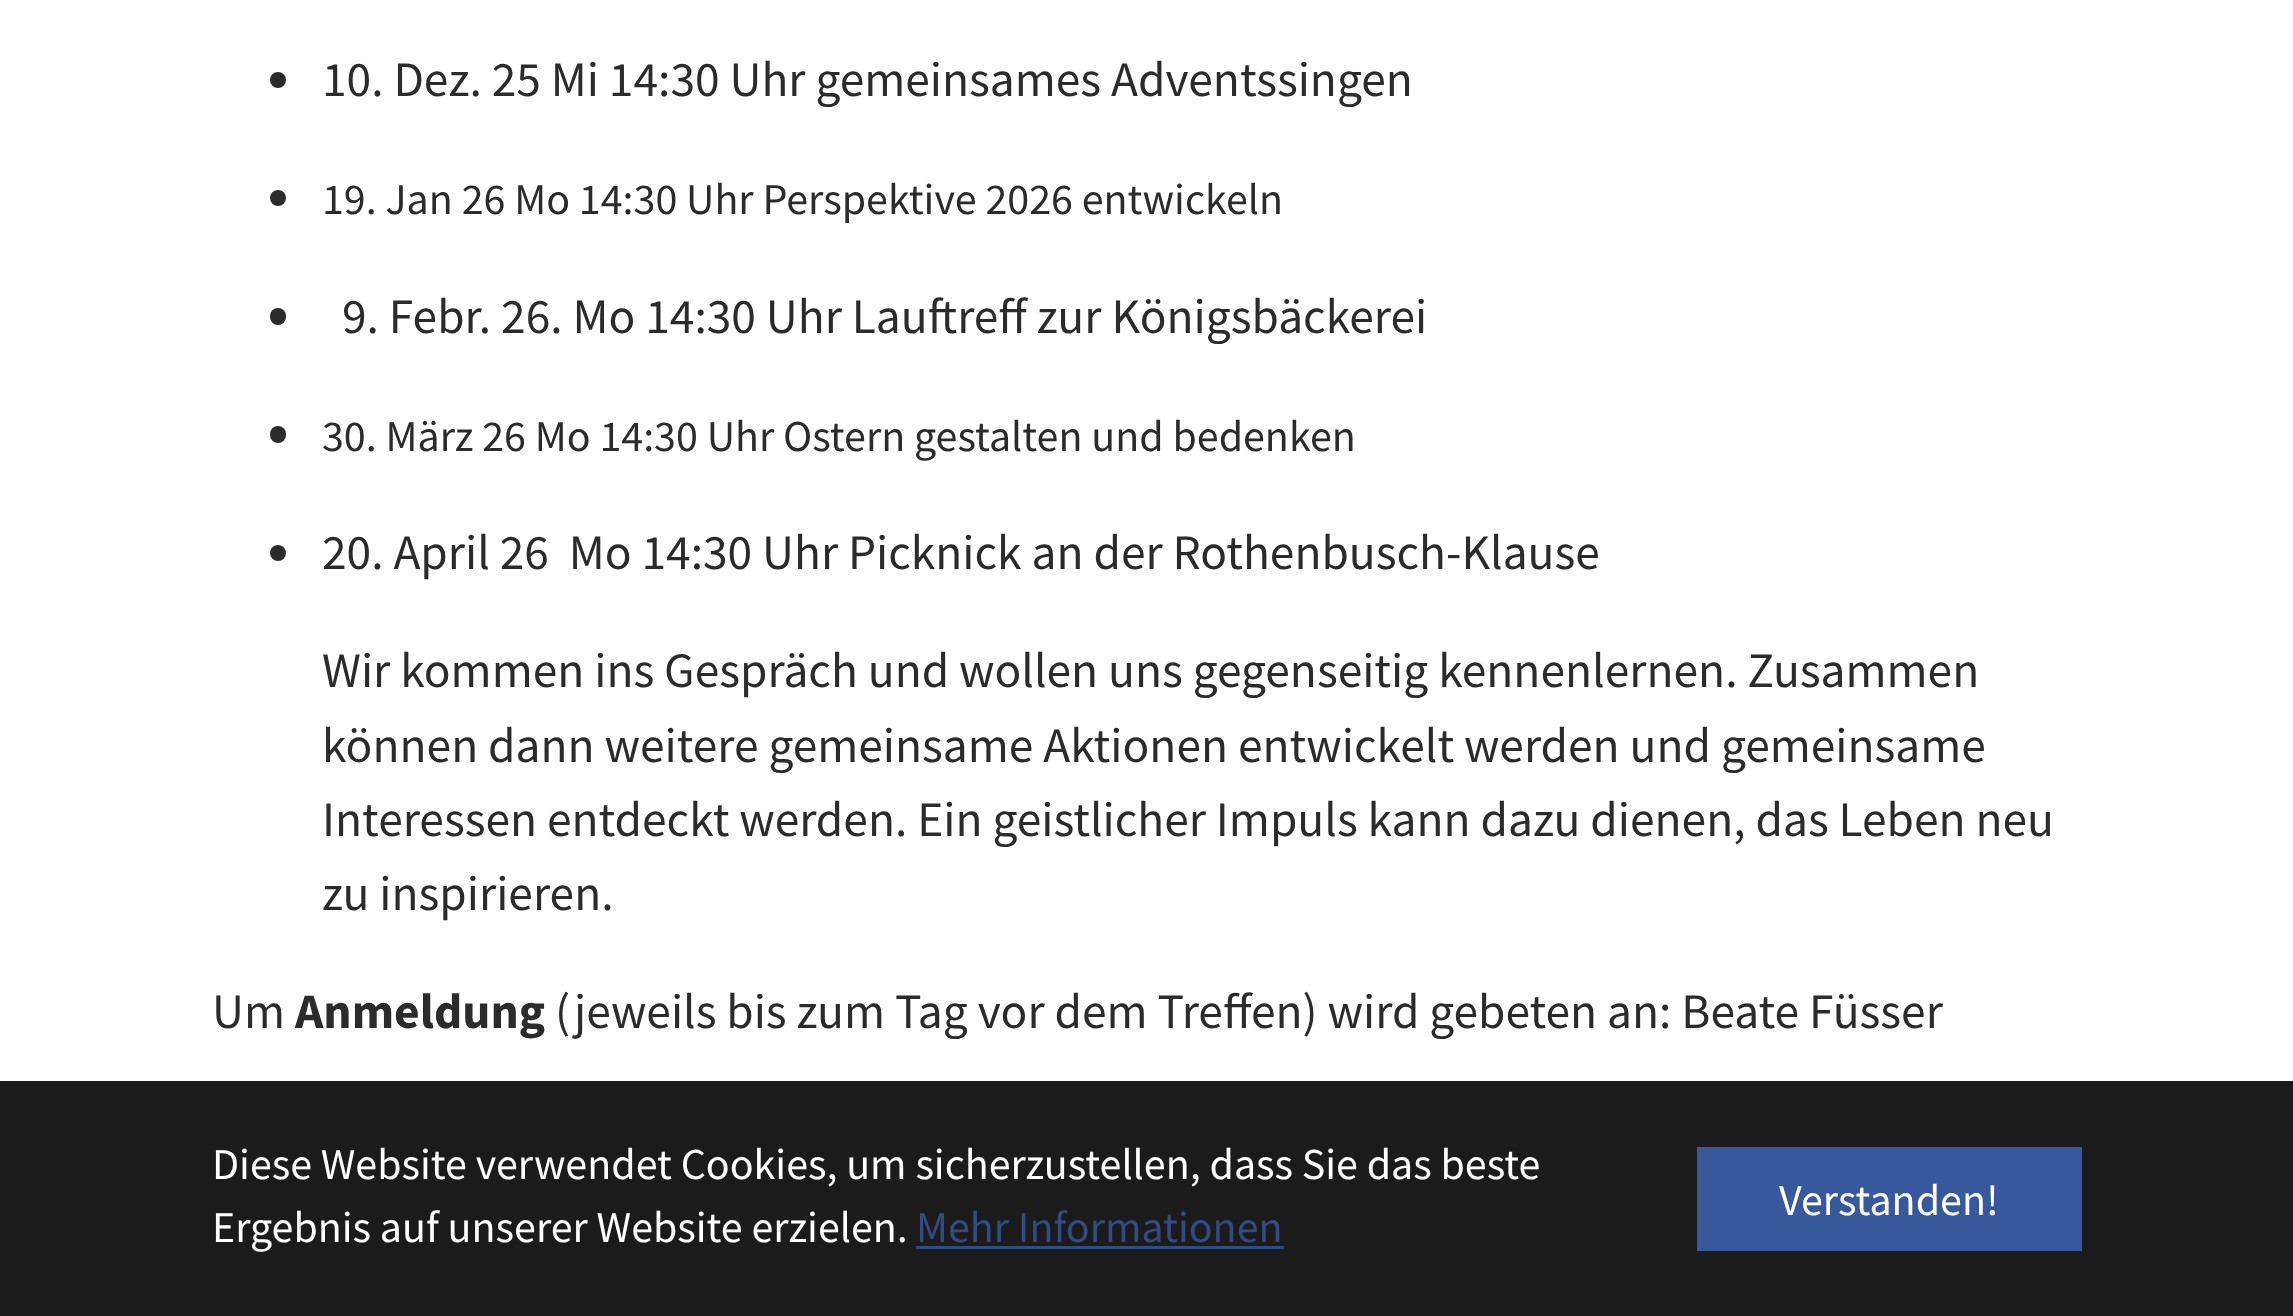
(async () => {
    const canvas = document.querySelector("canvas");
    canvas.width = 2293;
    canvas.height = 1316;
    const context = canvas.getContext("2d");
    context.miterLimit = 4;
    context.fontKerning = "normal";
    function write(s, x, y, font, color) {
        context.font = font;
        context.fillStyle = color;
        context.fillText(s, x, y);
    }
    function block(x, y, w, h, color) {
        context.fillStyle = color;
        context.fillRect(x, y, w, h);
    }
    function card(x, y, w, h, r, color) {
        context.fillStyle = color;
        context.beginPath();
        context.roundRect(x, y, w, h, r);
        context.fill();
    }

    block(0, 0, 2293, 1316, "rgb(255, 255, 255)");
    context.fillStyle = "rgb(43, 43, 43)";
    context.beginPath();
    context.arc(278, 80, 8, 0, Math.PI * 2);
    context.fill();
    write("10. Dez. 25 Mi 14:30 Uhr gemeinsames Adventssingen", 322, 96, "49.5px Source Sans Pro", "rgb(43, 43, 43)");
    context.beginPath();
    context.arc(278, 198, 8, 0, Math.PI * 2);
    context.fill();
    write("19. Jan 26 Mo 14:30 Uhr Perspektive 2026 entwickeln", 322, 214, "44px Source Sans Pro", "rgb(43, 43, 43)");
    card(270, 308, 16, 17, 8, "rgb(43, 43, 43)");
    write("9. Febr. 26. Mo 14:30 Uhr Lauftreff zur Königsbäckerei", 342, 333, "49.5px Source Sans Pro", "rgb(43, 43, 43)");
    card(270, 426, 16, 17, 8, "rgb(43, 43, 43)");
    write("30. März 26 Mo 14:30 Uhr Ostern gestalten und bedenken", 322, 451, "44px Source Sans Pro", "rgb(43, 43, 43)");
    context.beginPath();
    context.arc(278, 553, 8, 0, Math.PI * 2);
    context.fill();
    write("20. April 26  Mo 14:30 Uhr Picknick an der Rothenbusch-Klause", 322, 569, "49.5px Source Sans Pro", "rgb(43, 43, 43)");
    write("Wir kommen ins Gespräch und wollen uns gegenseitig kennenlernen. Zusammen", 322, 687, "49.5px Source Sans Pro", "rgb(43, 43, 43)");
    write("können dann weitere gemeinsame Aktionen entwickelt werden und gemeinsame", 322, 762, "49.5px Source Sans Pro", "rgb(43, 43, 43)");
    write("Interessen entdeckt werden. Ein geistlicher Impuls kann dazu dienen, das Leben neu", 322, 836, "49.5px Source Sans Pro", "rgb(43, 43, 43)");
    write("zu inspirieren.", 322, 910, "49.5px Source Sans Pro", "rgb(43, 43, 43)");
    write("Um", 212, 1028, "49.5px Source Sans Pro", "rgb(43, 43, 43)");
    write("Anmeldung", 295, 1028, "bold 49.5px Source Sans Pro", "rgb(43, 43, 43)");
    write("(jeweils bis zum Tag vor dem Treffen) wird gebeten an: Beate Füsser", 555, 1028, "49.5px Source Sans Pro", "rgb(43, 43, 43)");
    block(0, 1081, 2293, 235, "rgb(27, 27, 27)");
    write("Diese Website verwendet Cookies, um sicherzustellen, dass Sie das beste", 212, 1179, "44px Source Sans Pro", "rgb(255, 255, 255)");
    write("Ergebnis auf unserer Website erzielen.", 212, 1242, "44px Source Sans Pro", "rgb(255, 255, 255)");
    write("Mehr Informationen", 916, 1242, "44px Source Sans Pro", "rgb(49, 76, 130)");
    block(916, 1246, 368, 3, "rgb(49, 76, 130)");
    block(1697, 1147, 385, 104, "rgb(55, 88, 156)");
    write("Verstanden!", 1779, 1215, "44px Source Sans Pro", "rgb(255, 255, 255)");
})();
